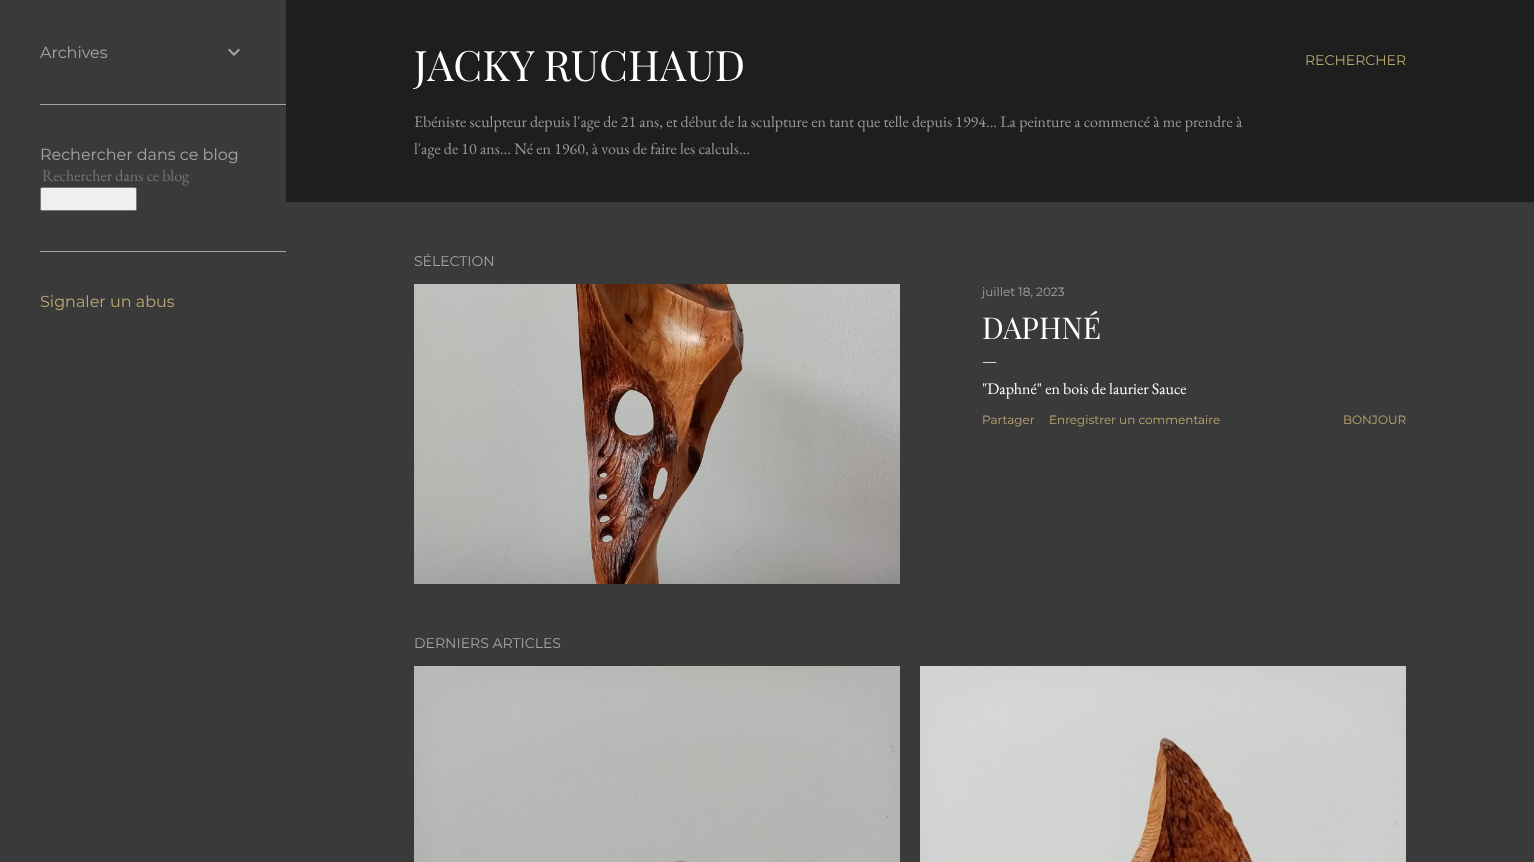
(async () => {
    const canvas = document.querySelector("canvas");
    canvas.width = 1534;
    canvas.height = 862;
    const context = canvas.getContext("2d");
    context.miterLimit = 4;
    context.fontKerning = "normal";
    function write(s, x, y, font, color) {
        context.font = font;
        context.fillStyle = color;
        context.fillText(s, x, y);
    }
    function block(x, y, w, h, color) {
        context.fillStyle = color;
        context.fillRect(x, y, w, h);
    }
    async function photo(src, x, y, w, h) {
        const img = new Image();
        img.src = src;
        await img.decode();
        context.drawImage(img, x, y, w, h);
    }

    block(0, 0, 1534, 862, "rgb(58, 58, 58)");
    write("Archives", 40, 58, "16px Montserrat", "rgb(164, 164, 164)");
    await photo("media/1.png", 228, 48, 12, 8);
    block(40, 104, 246, 1, "rgb(164, 164, 164)");
    write("Rechercher dans ce blog", 40, 160, "16px Montserrat", "rgb(164, 164, 164)");
    write("Rechercher dans ce blog", 42, 181, "16px EB Garamond", "rgb(117, 117, 117)");
    context.fillStyle = "rgb(239, 239, 239)";
    context.beginPath();
    context.roundRect(40.5, 187.5, 96, 23, 1.5);
    context.fill();
    context.strokeStyle = "rgb(118, 118, 118)";
    context.stroke();
    block(40, 251, 246, 1, "rgb(164, 164, 164)");
    write("Signaler un abus", 40, 307, "16px Montserrat", "rgb(188, 167, 114)");
    block(286, 0, 1248, 202, "rgb(30, 30, 30)");
    write("JACKY RUCHAUD", 414, 81, "42px Playfair Display", "rgb(255, 255, 255)");
    write("Ebéniste sculpteur depuis l'age de 21 ans, et début de la sculpture en tant que telle depuis 1994... La peinture a commencé à me prendre à", 414, 127, "16px EB Garamond", "rgb(152, 152, 152)");
    write("l'age de 10 ans... Né en 1960, à vous de faire les calculs...", 414, 154, "16px EB Garamond", "rgb(152, 152, 152)");
    write("RECHERCHER", 1305, 65, "14px Montserrat", "rgb(188, 167, 114)");
    write("SÉLECTION", 414, 266, "14px Montserrat", "rgb(164, 164, 164)");
    await photo("media/2.png", 414, 284, 486, 300);
    write("juillet 18, 2023", 982, 296, "12px Montserrat", "rgb(164, 164, 164)");
    write("DAPHNÉ", 982, 339, "30px Playfair Display", "rgb(255, 255, 255)");
    write("—", 982, 366, "16px EB Garamond", "rgb(255, 255, 255)");
    write("\"Daphné\" en bois de laurier Sauce", 982, 394, "16px EB Garamond", "rgb(255, 255, 255)");
    write("Partager", 982, 424, "12px Montserrat", "rgb(188, 167, 114)");
    write("Enregistrer un commentaire", 1049, 424, "12px Montserrat", "rgb(188, 167, 114)");
    write("BONJOUR", 1343, 424, "12px Montserrat", "rgb(188, 167, 114)");
    write("DERNIERS ARTICLES", 414, 648, "14px Montserrat", "rgb(164, 164, 164)");
    await photo("media/3.png", 414, 666, 486, 196);
    await photo("media/4.png", 920, 666, 486, 196);
})();
